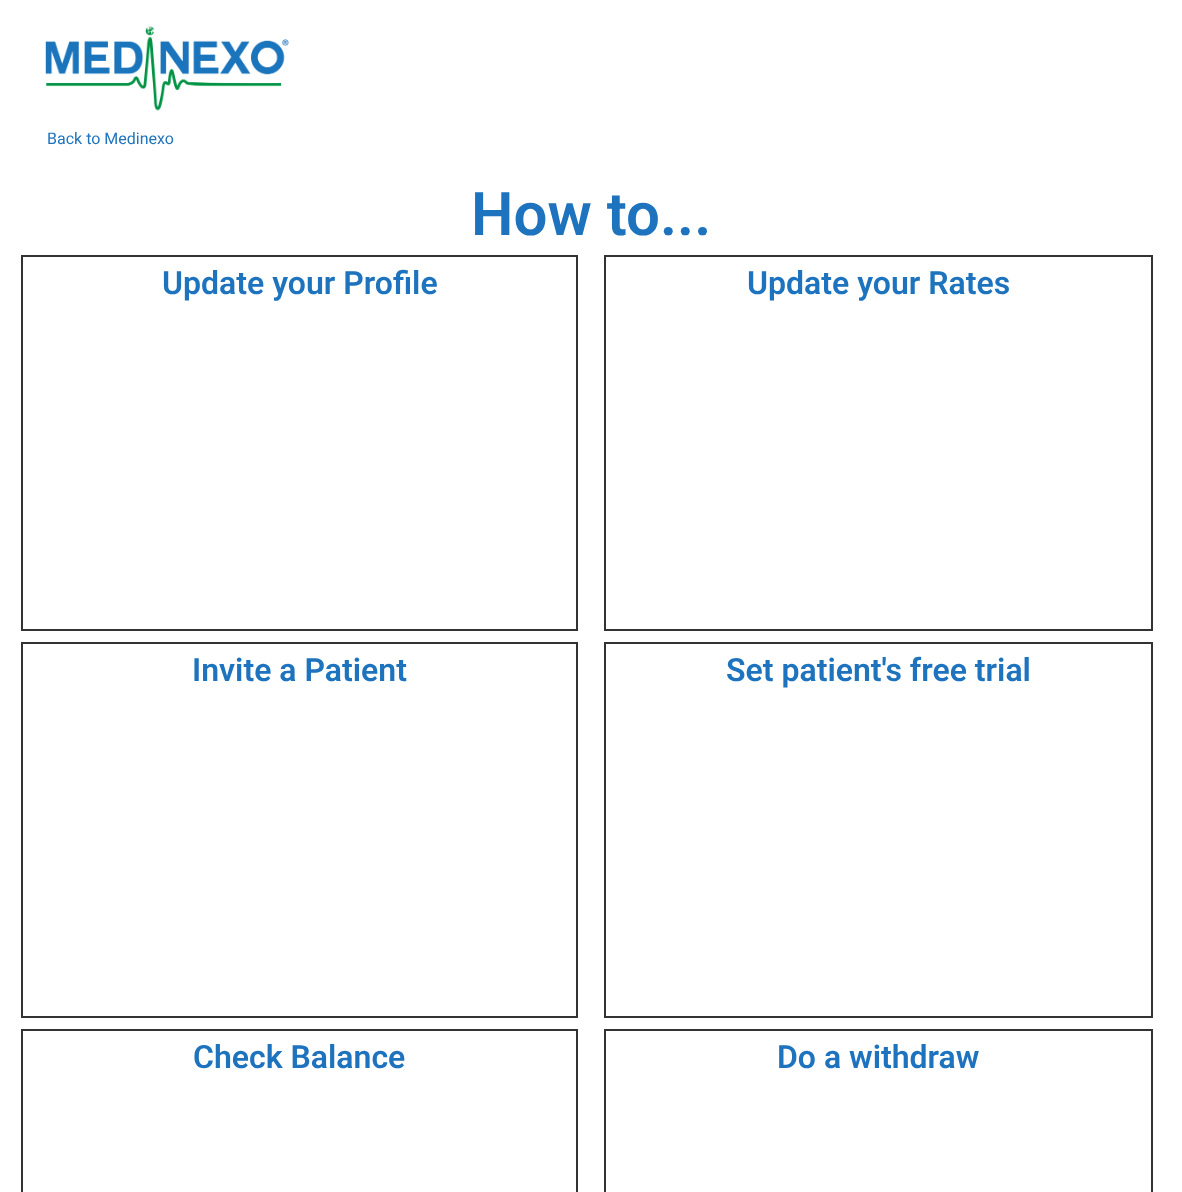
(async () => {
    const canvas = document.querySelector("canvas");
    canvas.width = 1182;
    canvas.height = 1192;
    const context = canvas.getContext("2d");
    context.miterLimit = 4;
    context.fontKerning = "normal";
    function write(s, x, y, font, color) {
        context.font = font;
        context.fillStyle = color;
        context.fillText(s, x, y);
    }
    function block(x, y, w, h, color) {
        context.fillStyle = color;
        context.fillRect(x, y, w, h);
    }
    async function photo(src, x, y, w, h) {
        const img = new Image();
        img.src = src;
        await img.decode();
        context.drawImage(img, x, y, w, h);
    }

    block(0, 0, 1182, 1192, "rgb(255, 255, 255)");
    await photo("media/1.png", 45, 26, 244, 85);
    write("Back to Medinexo", 47, 144, "16px Roboto", "rgb(30, 115, 190)");
    write("How to...", 471, 235, "600 60px Roboto", "rgb(30, 115, 190)");
    context.beginPath();
    context.rect(22, 256, 555, 374);
    context.strokeStyle = "rgb(51, 51, 51)";
    context.lineWidth = 2;
    context.stroke();
    write("Update your Profile", 162, 294, "600 32px Roboto", "rgb(30, 115, 190)");
    context.beginPath();
    context.rect(605, 256, 547, 374);
    context.stroke();
    write("Update your Rates", 747, 294, "600 32px Roboto", "rgb(30, 115, 190)");
    context.beginPath();
    context.rect(22, 643, 555, 374);
    context.stroke();
    write("Invite a Patient", 192, 681, "600 32px Roboto", "rgb(30, 115, 190)");
    context.beginPath();
    context.rect(605, 643, 547, 374);
    context.stroke();
    write("Set patient's free trial", 726, 681, "600 32px Roboto", "rgb(30, 115, 190)");
    context.beginPath();
    context.rect(22, 1030, 555, 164);
    context.stroke();
    write("Check Balance", 193, 1068, "600 32px Roboto", "rgb(30, 115, 190)");
    context.beginPath();
    context.rect(605, 1030, 547, 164);
    context.stroke();
    write("Do a withdraw", 777, 1068, "600 32px Roboto", "rgb(30, 115, 190)");
})();
